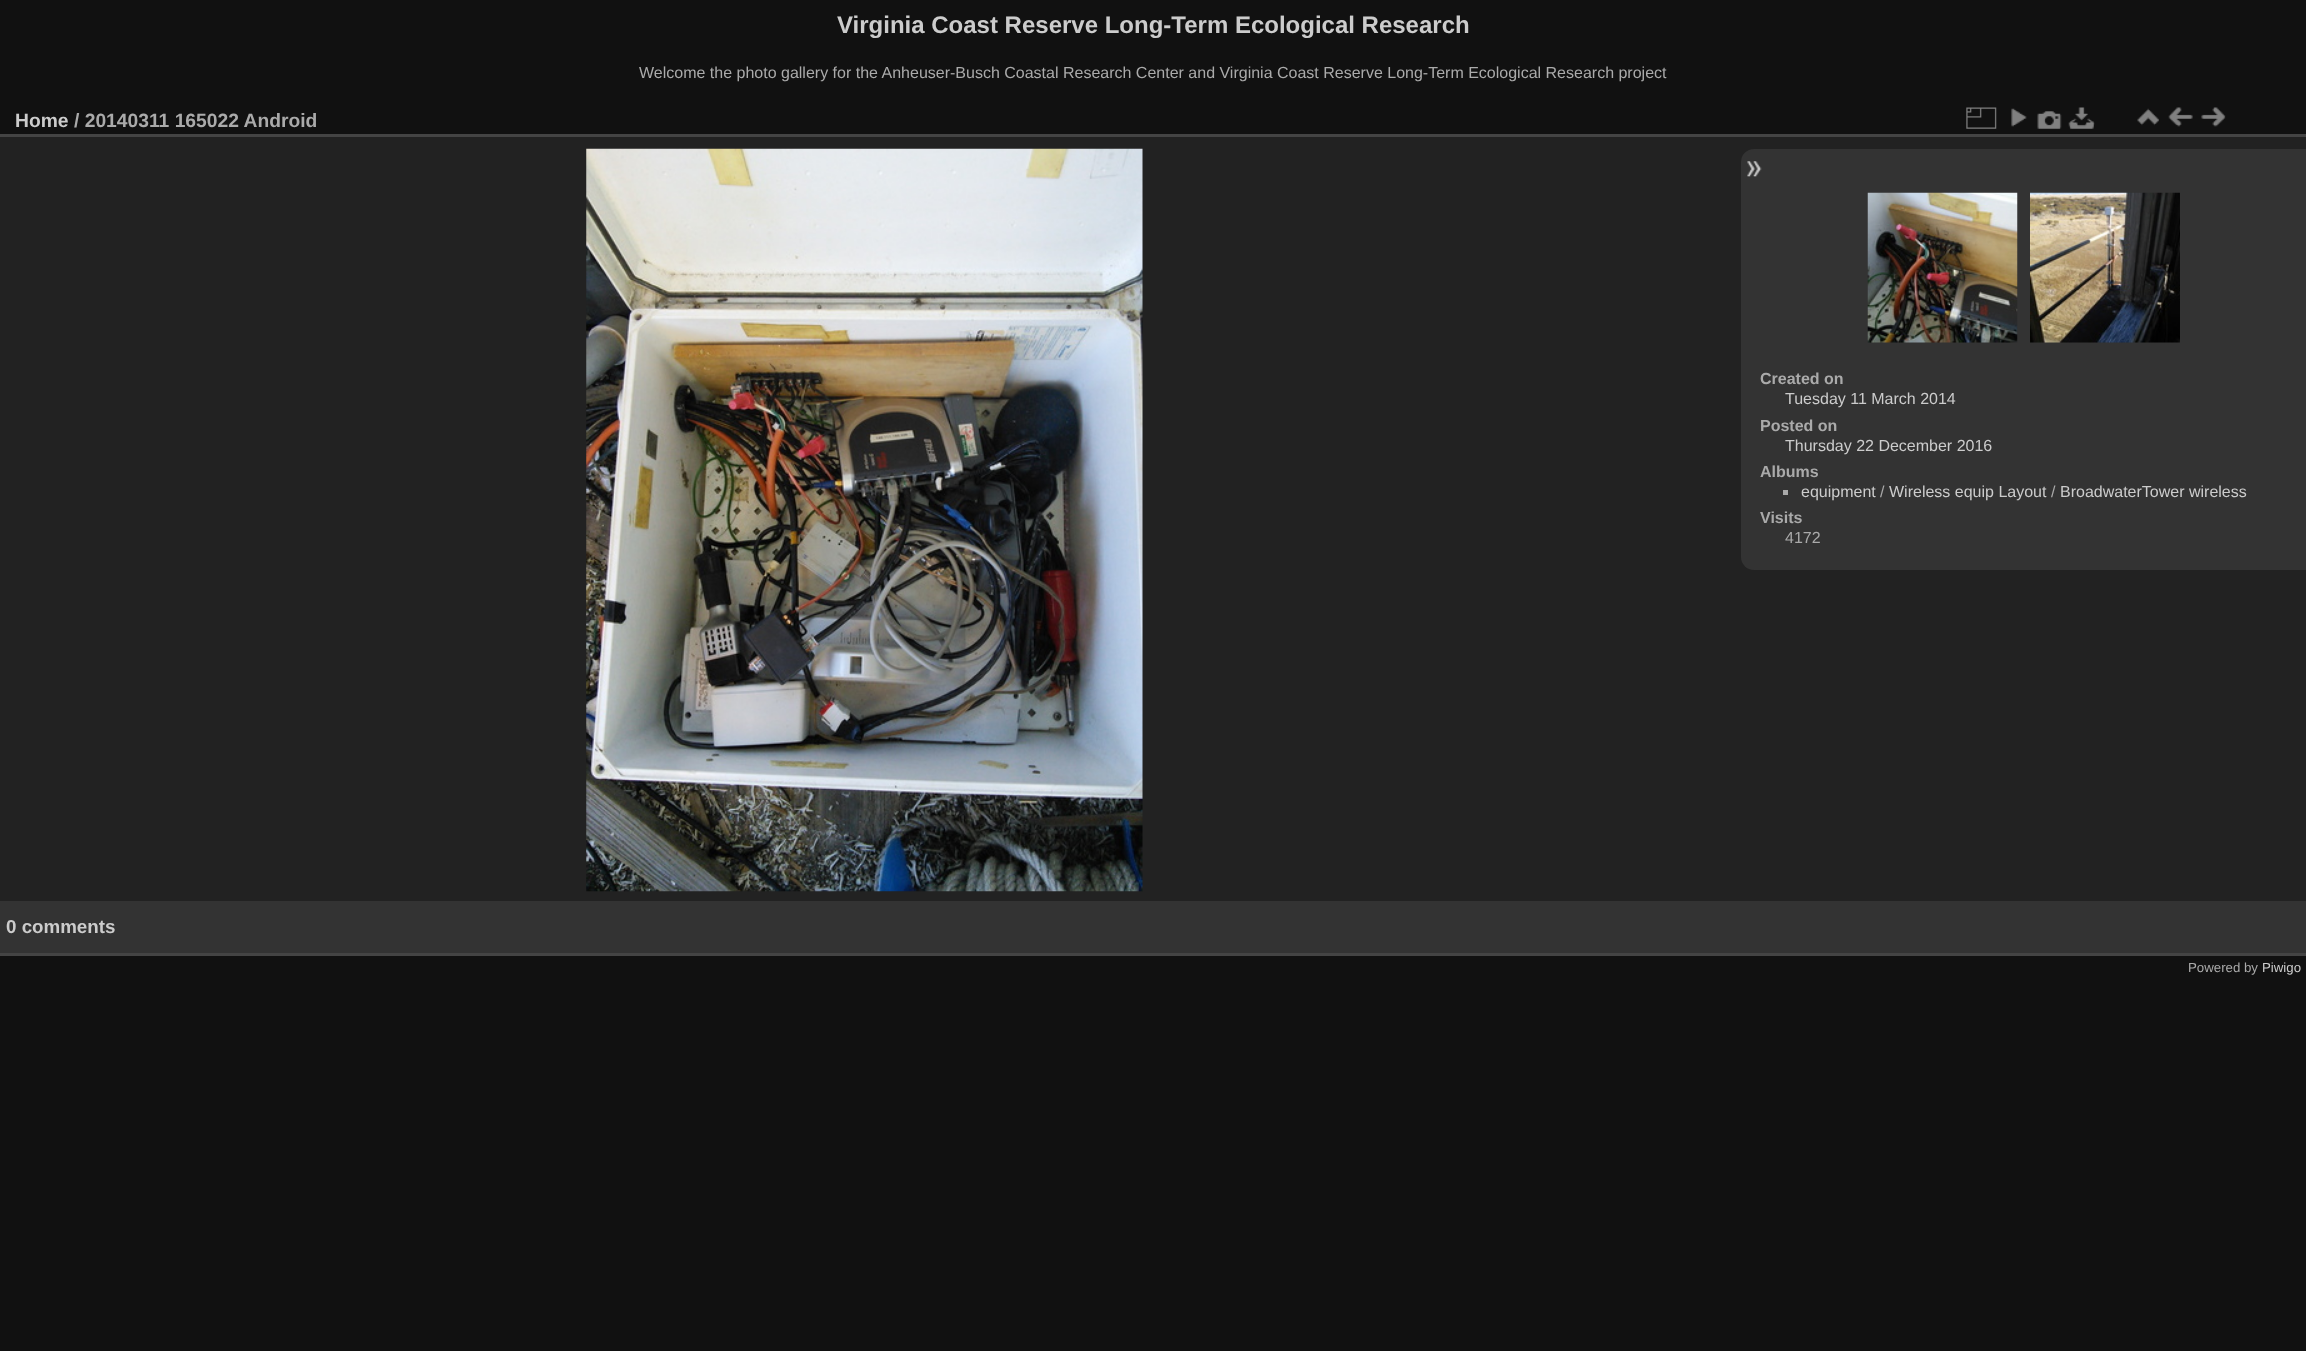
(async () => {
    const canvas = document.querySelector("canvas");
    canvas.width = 2306;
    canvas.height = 1351;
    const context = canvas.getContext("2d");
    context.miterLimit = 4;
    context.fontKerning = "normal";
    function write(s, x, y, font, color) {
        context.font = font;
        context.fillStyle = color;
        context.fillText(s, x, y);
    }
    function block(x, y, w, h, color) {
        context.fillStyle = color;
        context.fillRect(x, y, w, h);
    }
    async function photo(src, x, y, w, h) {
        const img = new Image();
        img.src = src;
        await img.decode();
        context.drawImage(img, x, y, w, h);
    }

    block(0, 0, 2306, 1351, "rgb(17, 17, 17)");
    write("Virginia Coast Reserve Long-Term Ecological Research", 837, 33, "bold 24px Liberation Sans", "rgb(204, 204, 204)");
    write("Welcome the photo gallery for the Anheuser-Busch Coastal Research Center and Virginia Coast Reserve Long-Term Ecological Research project", 639, 78, "16px Liberation Sans", "rgb(170, 170, 170)");
    block(0, 137, 2306, 764, "rgb(34, 34, 34)");
    block(0, 953, 2306, 3, "rgb(68, 68, 68)");
    block(0, 134, 2306, 3, "rgb(68, 68, 68)");
    write("Home", 15, 127, "bold 19.25px Liberation Sans", "rgb(204, 204, 204)");
    write("/ 20140311 165022 Android", 74, 127, "bold 19.25px Liberation Sans", "rgb(170, 170, 170)");
    await photo("media/1.png", 1966, 107, 31, 22);
    await photo("media/2.png", 2011, 108, 16, 19);
    await photo("media/3.png", 2037, 111, 25, 18);
    await photo("media/4.png", 2068, 107, 27, 22);
    await photo("media/5.png", 2137, 108, 22, 18);
    await photo("media/6.png", 2168, 107, 25, 20);
    await photo("media/7.png", 2201, 107, 25, 20);
    await photo("media/8.png", 586, 148, 557, 744);
    context.fillStyle = "rgb(51, 51, 51)";
    context.beginPath();
    context.roundRect(1741, 149, 565, 421, [13, 0, 0, 13]);
    context.fill();
    await photo("media/9.png", 1747, 161, 15, 16);
    await photo("media/10.png", 1867, 192, 151, 151);
    await photo("media/11.png", 2030, 192, 150, 151);
    write("Created on", 1760, 384, "bold 16px Liberation Sans", "rgb(170, 170, 170)");
    write("Tuesday 11 March 2014", 1785, 404, "16px Liberation Sans", "rgb(204, 204, 204)");
    write("Posted on", 1760, 431, "bold 16px Liberation Sans", "rgb(170, 170, 170)");
    write("Thursday 22 December 2016", 1785, 451, "16px Liberation Sans", "rgb(204, 204, 204)");
    write("Albums", 1760, 477, "bold 16px Liberation Sans", "rgb(170, 170, 170)");
    block(1783, 490, 5, 5, "rgb(170, 170, 170)");
    write("equipment", 1801, 497, "16px Liberation Sans", "rgb(204, 204, 204)");
    write("/", 1880, 497, "16px Liberation Sans", "rgb(170, 170, 170)");
    write("Wireless equip Layout", 1889, 497, "16px Liberation Sans", "rgb(204, 204, 204)");
    write("/", 2051, 497, "16px Liberation Sans", "rgb(170, 170, 170)");
    write("BroadwaterTower wireless", 2060, 497, "16px Liberation Sans", "rgb(204, 204, 204)");
    write("Visits", 1760, 523, "bold 16px Liberation Sans", "rgb(170, 170, 170)");
    write("4172", 1785, 543, "16px Liberation Sans", "rgb(170, 170, 170)");
    block(0, 901, 2306, 52, "rgb(51, 51, 51)");
    write("0 comments", 6, 933, "bold 18.75px Liberation Sans", "rgb(204, 204, 204)");
    write("Powered by", 2188, 972, "13.25px Liberation Sans", "rgb(170, 170, 170)");
    write("Piwigo", 2262, 972, "13.25px Liberation Sans", "rgb(204, 204, 204)");
})();
